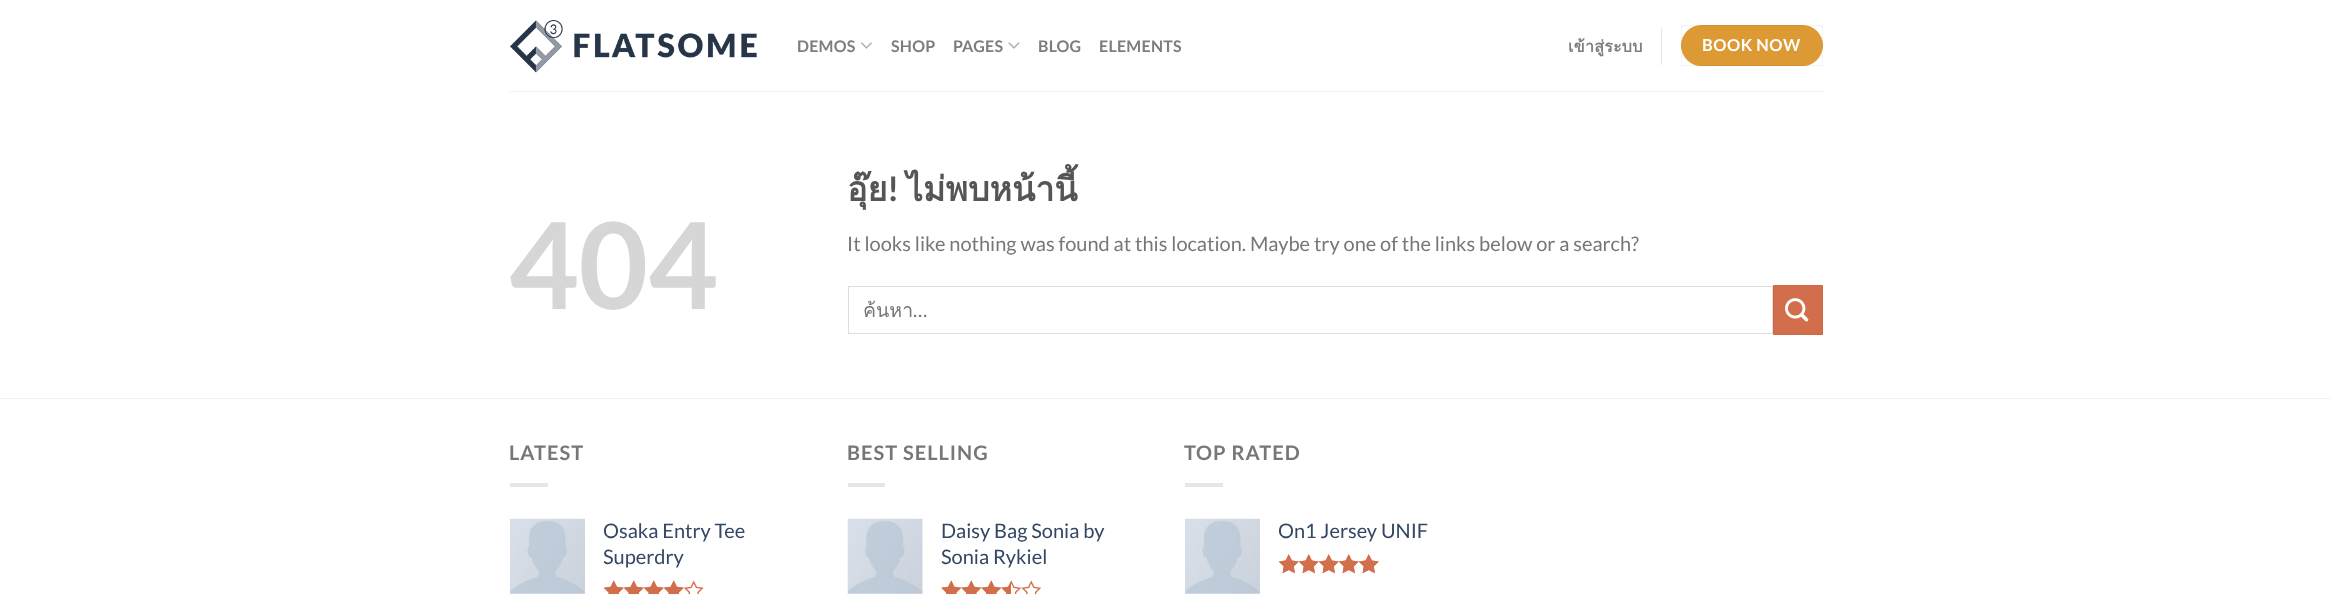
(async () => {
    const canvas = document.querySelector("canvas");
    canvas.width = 2331;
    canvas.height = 594;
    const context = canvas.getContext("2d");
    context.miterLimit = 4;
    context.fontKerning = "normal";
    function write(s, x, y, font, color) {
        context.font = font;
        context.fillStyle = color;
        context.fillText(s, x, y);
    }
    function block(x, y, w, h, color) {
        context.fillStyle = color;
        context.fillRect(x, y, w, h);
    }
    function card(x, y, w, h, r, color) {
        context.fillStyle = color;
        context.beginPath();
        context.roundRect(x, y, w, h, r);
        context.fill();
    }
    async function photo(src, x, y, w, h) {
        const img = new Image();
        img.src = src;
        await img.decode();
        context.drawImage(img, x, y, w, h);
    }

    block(0, 0, 2331, 594, "rgb(255, 255, 255)");
    await photo("media/1.png", 510, 20, 247, 53);
    context.letterSpacing = "0.25px";
    write("DEMOS", 797, 52, "bold 16px Lato", "rgb(125, 125, 125)");
    await photo("media/2.png", 861, 42, 11, 7);
    write("SHOP", 891, 52, "bold 16px Lato", "rgb(125, 125, 125)");
    write("PAGES", 953, 52, "bold 16px Lato", "rgb(125, 125, 125)");
    await photo("media/3.png", 1008, 42, 12, 7);
    write("BLOG", 1038, 52, "bold 16px Lato", "rgb(125, 125, 125)");
    write("ELEMENTS", 1099, 52, "bold 16px Lato", "rgb(125, 125, 125)");
    write("เข้าสู่ระบบ", 1568, 52, "bold 16px Loma", "rgb(125, 125, 125)");
    block(1661, 28, 1, 37, "rgb(230, 230, 230)");
    card(1681, 25, 142, 41, 20.5, "rgb(221, 153, 51)");
    context.strokeStyle = "rgba(0, 0, 0, 0.05)";
    context.strokeRect(1681.5, 25.5, 141, 40);
    context.letterSpacing = "0.5px";
    write("BOOK NOW", 1702, 51, "bold 16.5px Lato", "rgb(255, 255, 255)");
    block(510, 91, 1313, 1, "rgb(241, 241, 241)");
    context.letterSpacing = "0px";
    write("404", 509, 309, "bold 120px Lato", "rgb(214, 214, 214)");
    write("อุ๊ย", 847, 201, "bold 34px Loma", "rgb(85, 85, 85)");
    write("!", 887, 201, "bold 34px Lato", "rgb(85, 85, 85)");
    write("ไม่พบหน้านี้", 906, 201, "bold 34px Loma", "rgb(85, 85, 85)");
    write("It looks like nothing was found at this location. Maybe try one of the links below or a search?", 847, 251, "20px Lato", "rgb(119, 119, 119)");
    context.strokeStyle = "rgb(221, 221, 221)";
    context.strokeRect(848.5, 286.5, 924, 47);
    context.save();
    context.beginPath();
    context.rect(863, 295, 888, 31);
    context.clip();
    write("ค้นหา", 863, 317, "19.5px Loma", "rgb(119, 119, 119)");
    context.restore();
    write("…", 913, 317, "19.5px Lato", "rgb(119, 119, 119)");
    context.fillStyle = "rgb(210, 110, 75)";
    context.beginPath();
    context.rect(1773.5, 285.5, 49, 49);
    context.fill();
    context.strokeStyle = "rgb(200, 105, 71)";
    context.stroke();
    await photo("media/4.png", 1785, 298, 24, 24);
    block(0, 398, 2331, 1, "rgb(242, 242, 242)");
    context.letterSpacing = "1px";
    write("LATEST", 509, 460, "bold 20px Lato", "rgb(119, 119, 119)");
    block(510, 483, 38, 4, "rgb(230, 230, 230)");
    await photo("media/5.png", 510, 518, 75, 76);
    context.letterSpacing = "0px";
    write("Osaka Entry Tee", 603, 538, "20px Lato", "rgb(51, 72, 98)");
    write("Superdry", 603, 564, "20px Lato", "rgb(51, 72, 98)");
    await photo("media/6.png", 604, 580, 100, 14);
    await photo("media/7.png", 604, 580, 80, 14);
    context.letterSpacing = "1px";
    write("BEST SELLING", 847, 460, "bold 20px Lato", "rgb(119, 119, 119)");
    block(848, 483, 37, 4, "rgb(230, 230, 230)");
    await photo("media/8.png", 847, 518, 76, 76);
    context.letterSpacing = "0px";
    write("Daisy Bag Sonia by", 941, 538, "20px Lato", "rgb(51, 72, 98)");
    write("Sonia Rykiel", 941, 564, "20px Lato", "rgb(51, 72, 98)");
    await photo("media/9.png", 941, 580, 100, 14);
    await photo("media/10.png", 941, 580, 70, 14);
    context.letterSpacing = "1px";
    write("TOP RATED", 1184, 460, "bold 20px Lato", "rgb(119, 119, 119)");
    block(1185, 483, 38, 4, "rgb(230, 230, 230)");
    await photo("media/11.png", 1185, 518, 75, 76);
    context.letterSpacing = "0px";
    write("On1 Jersey UNIF", 1278, 538, "20px Lato", "rgb(51, 72, 98)");
    await photo("media/12.png", 1279, 554, 100, 20);
    await photo("media/13.png", 1279, 554, 100, 20);
})();
